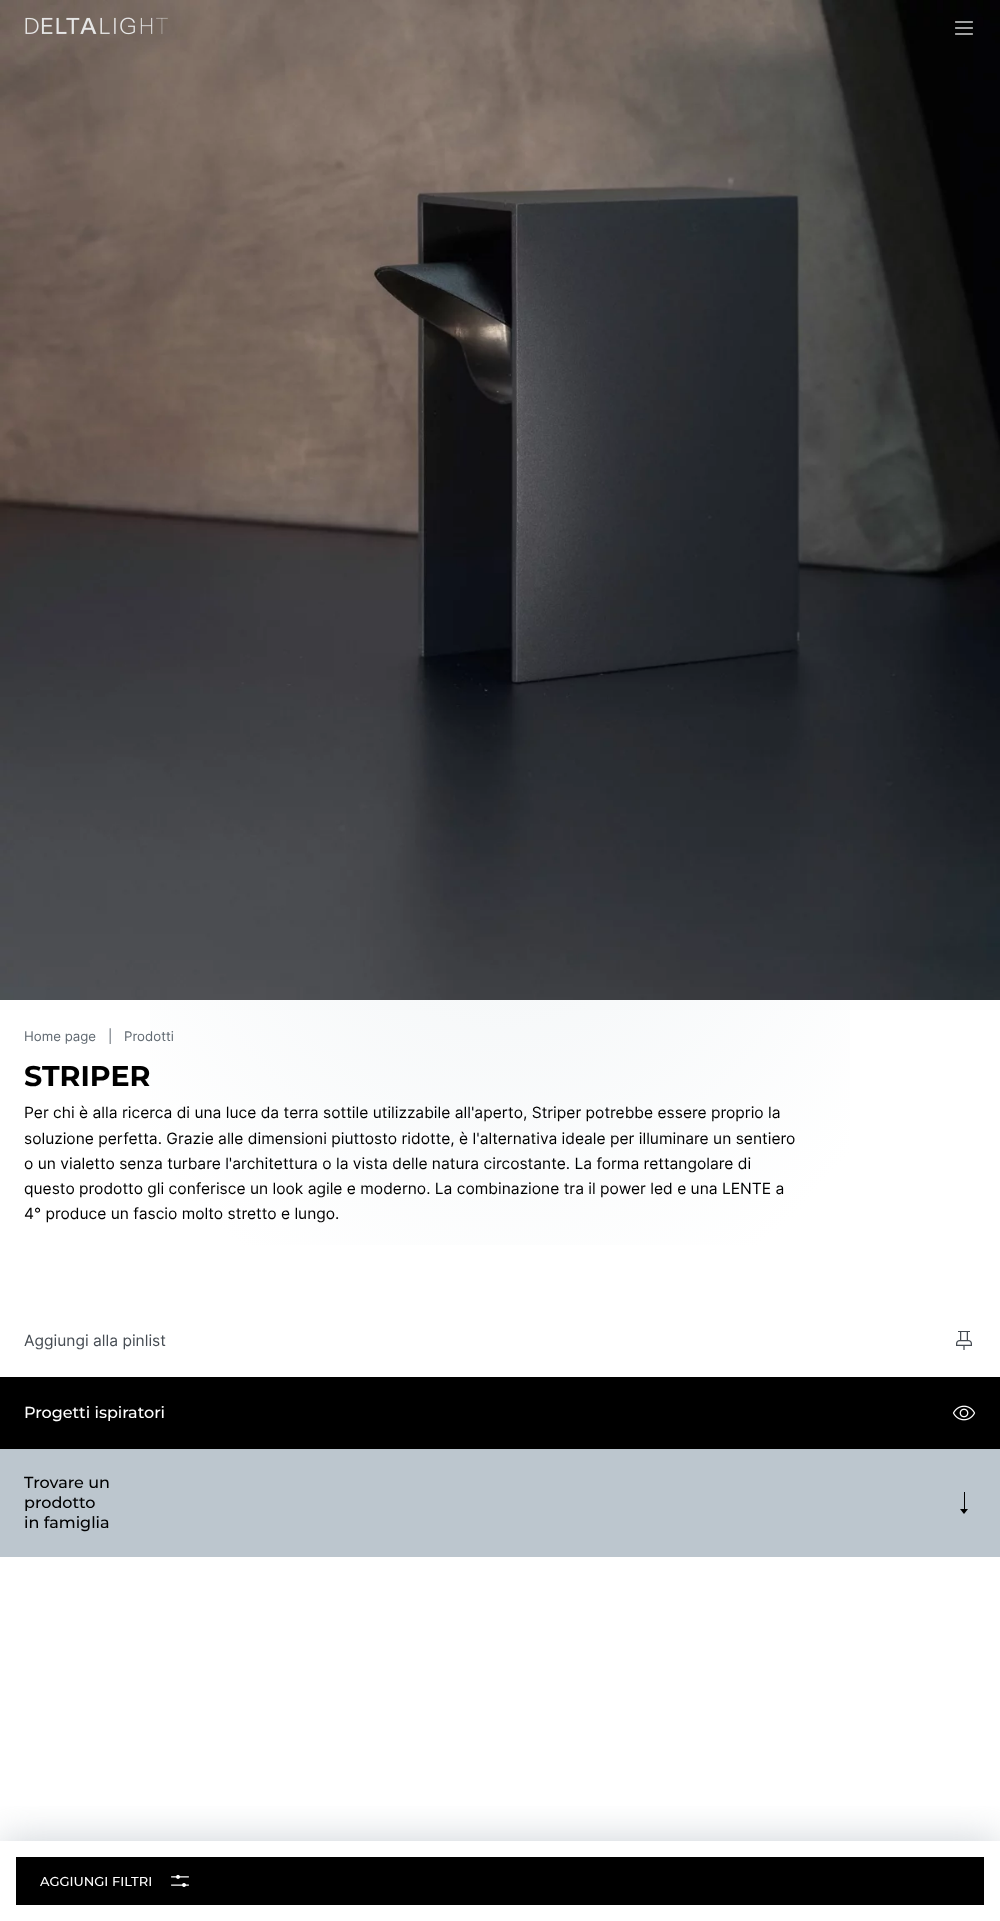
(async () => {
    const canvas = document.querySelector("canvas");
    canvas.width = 1000;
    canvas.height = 1921;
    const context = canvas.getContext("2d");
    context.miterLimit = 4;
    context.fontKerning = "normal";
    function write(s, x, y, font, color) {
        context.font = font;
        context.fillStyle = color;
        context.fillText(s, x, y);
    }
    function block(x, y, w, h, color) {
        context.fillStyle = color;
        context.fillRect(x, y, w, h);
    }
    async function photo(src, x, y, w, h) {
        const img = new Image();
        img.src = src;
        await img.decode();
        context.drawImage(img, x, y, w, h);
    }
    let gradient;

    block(0, 0, 1000, 1921, "rgb(255, 255, 255)");
    gradient = context.createRadialGradient(500, 500, 0, 500, 500, 500);
    gradient.addColorStop(0, "rgb(238, 242, 244)");
    gradient.addColorStop(1, "rgb(255, 255, 255)");
    context.fillStyle = gradient;
    context.beginPath();
    context.rect(150, 1000, 700, 245);
    context.save();
    context.clip();
    context.scale(1, 672 / 500);
    context.fillRect(0, 0, 1000, 1430);
    context.restore();
    await photo("media/3.png", 0, 0, 1000, 1000);
    await photo("media/1.png", 25, 17, 143, 18);
    await photo("media/2.png", 955, 21, 18, 14);
    write("Home page", 24, 1041, "13.25px Inter", "rgb(96, 105, 113)");
    write("|", 108, 1041, "13.25px Inter", "rgb(96, 105, 113)");
    write("Prodotti", 124, 1041, "13.25px Inter", "rgb(96, 105, 113)");
    write("STRIPER", 24, 1086, "100 28.5px Montserrat", "rgb(0, 0, 0)");
    write("Per chi è alla ricerca di una luce da terra sottile utilizzabile all'aperto, Striper potrebbe essere proprio la", 24, 1118, "15.6px Inter", "rgb(0, 0, 0)");
    write("soluzione perfetta. Grazie alle dimensioni piuttosto ridotte, è l'alternativa ideale per illuminare un sentiero", 24, 1144, "15.6px Inter", "rgb(0, 0, 0)");
    write("o un vialetto senza turbare l'architettura o la vista delle natura circostante. La forma rettangolare di", 24, 1169, "15.6px Inter", "rgb(0, 0, 0)");
    write("questo prodotto gli conferisce un look agile e moderno. La combinazione tra il power led e una LENTE a", 24, 1194, "15.6px Inter", "rgb(0, 0, 0)");
    write("4° produce un fascio molto stretto e lungo.", 24, 1219, "15.6px Inter", "rgb(0, 0, 0)");
    write("Aggiungi alla pinlist", 24, 1346, "15.6px Inter", "rgb(70, 76, 83)");
    await photo("media/4.png", 956, 1331, 16, 19);
    block(0, 1377, 1000, 72, "rgb(0, 0, 0)");
    write("Progetti ispiratori", 24, 1418, "100 16px 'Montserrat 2'", "rgb(255, 255, 255)");
    await photo("media/5.png", 952, 1405, 24, 16);
    block(0, 1449, 1000, 108, "rgb(188, 198, 206)");
    write("Trovare un", 24, 1488, "100 16px 'Montserrat 2'", "rgb(0, 0, 0)");
    write("prodotto", 24, 1508, "100 16px 'Montserrat 2'", "rgb(0, 0, 0)");
    write("in famiglia", 24, 1528, "100 16px 'Montserrat 2'", "rgb(0, 0, 0)");
    block(964, 1492, 1, 18, "rgb(0, 0, 0)");
    context.beginPath();
    context.moveTo(964, 1514);
    context.lineTo(960, 1509);
    context.lineTo(968, 1509);
    context.closePath();
    context.fill();
    context.save();
    context.beginPath();
    context.rect(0, 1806, 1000, 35);
    context.clip();
    context.fillStyle = "rgba(152, 164, 174, 0.5)";
    context.filter = "blur(20px)";
    context.beginPath();
    context.rect(0, 1841, 1000, 80);
    context.fill();
    context.filter = "none";
    context.restore();
    block(16, 1857, 968, 48, "rgb(0, 0, 0)");
    write("AGGIUNGI FILTRI", 40, 1886, "100 13px 'Montserrat 2'", "rgb(255, 255, 255)");
    await photo("media/6.png", 171, 1874, 18, 13);
})();
